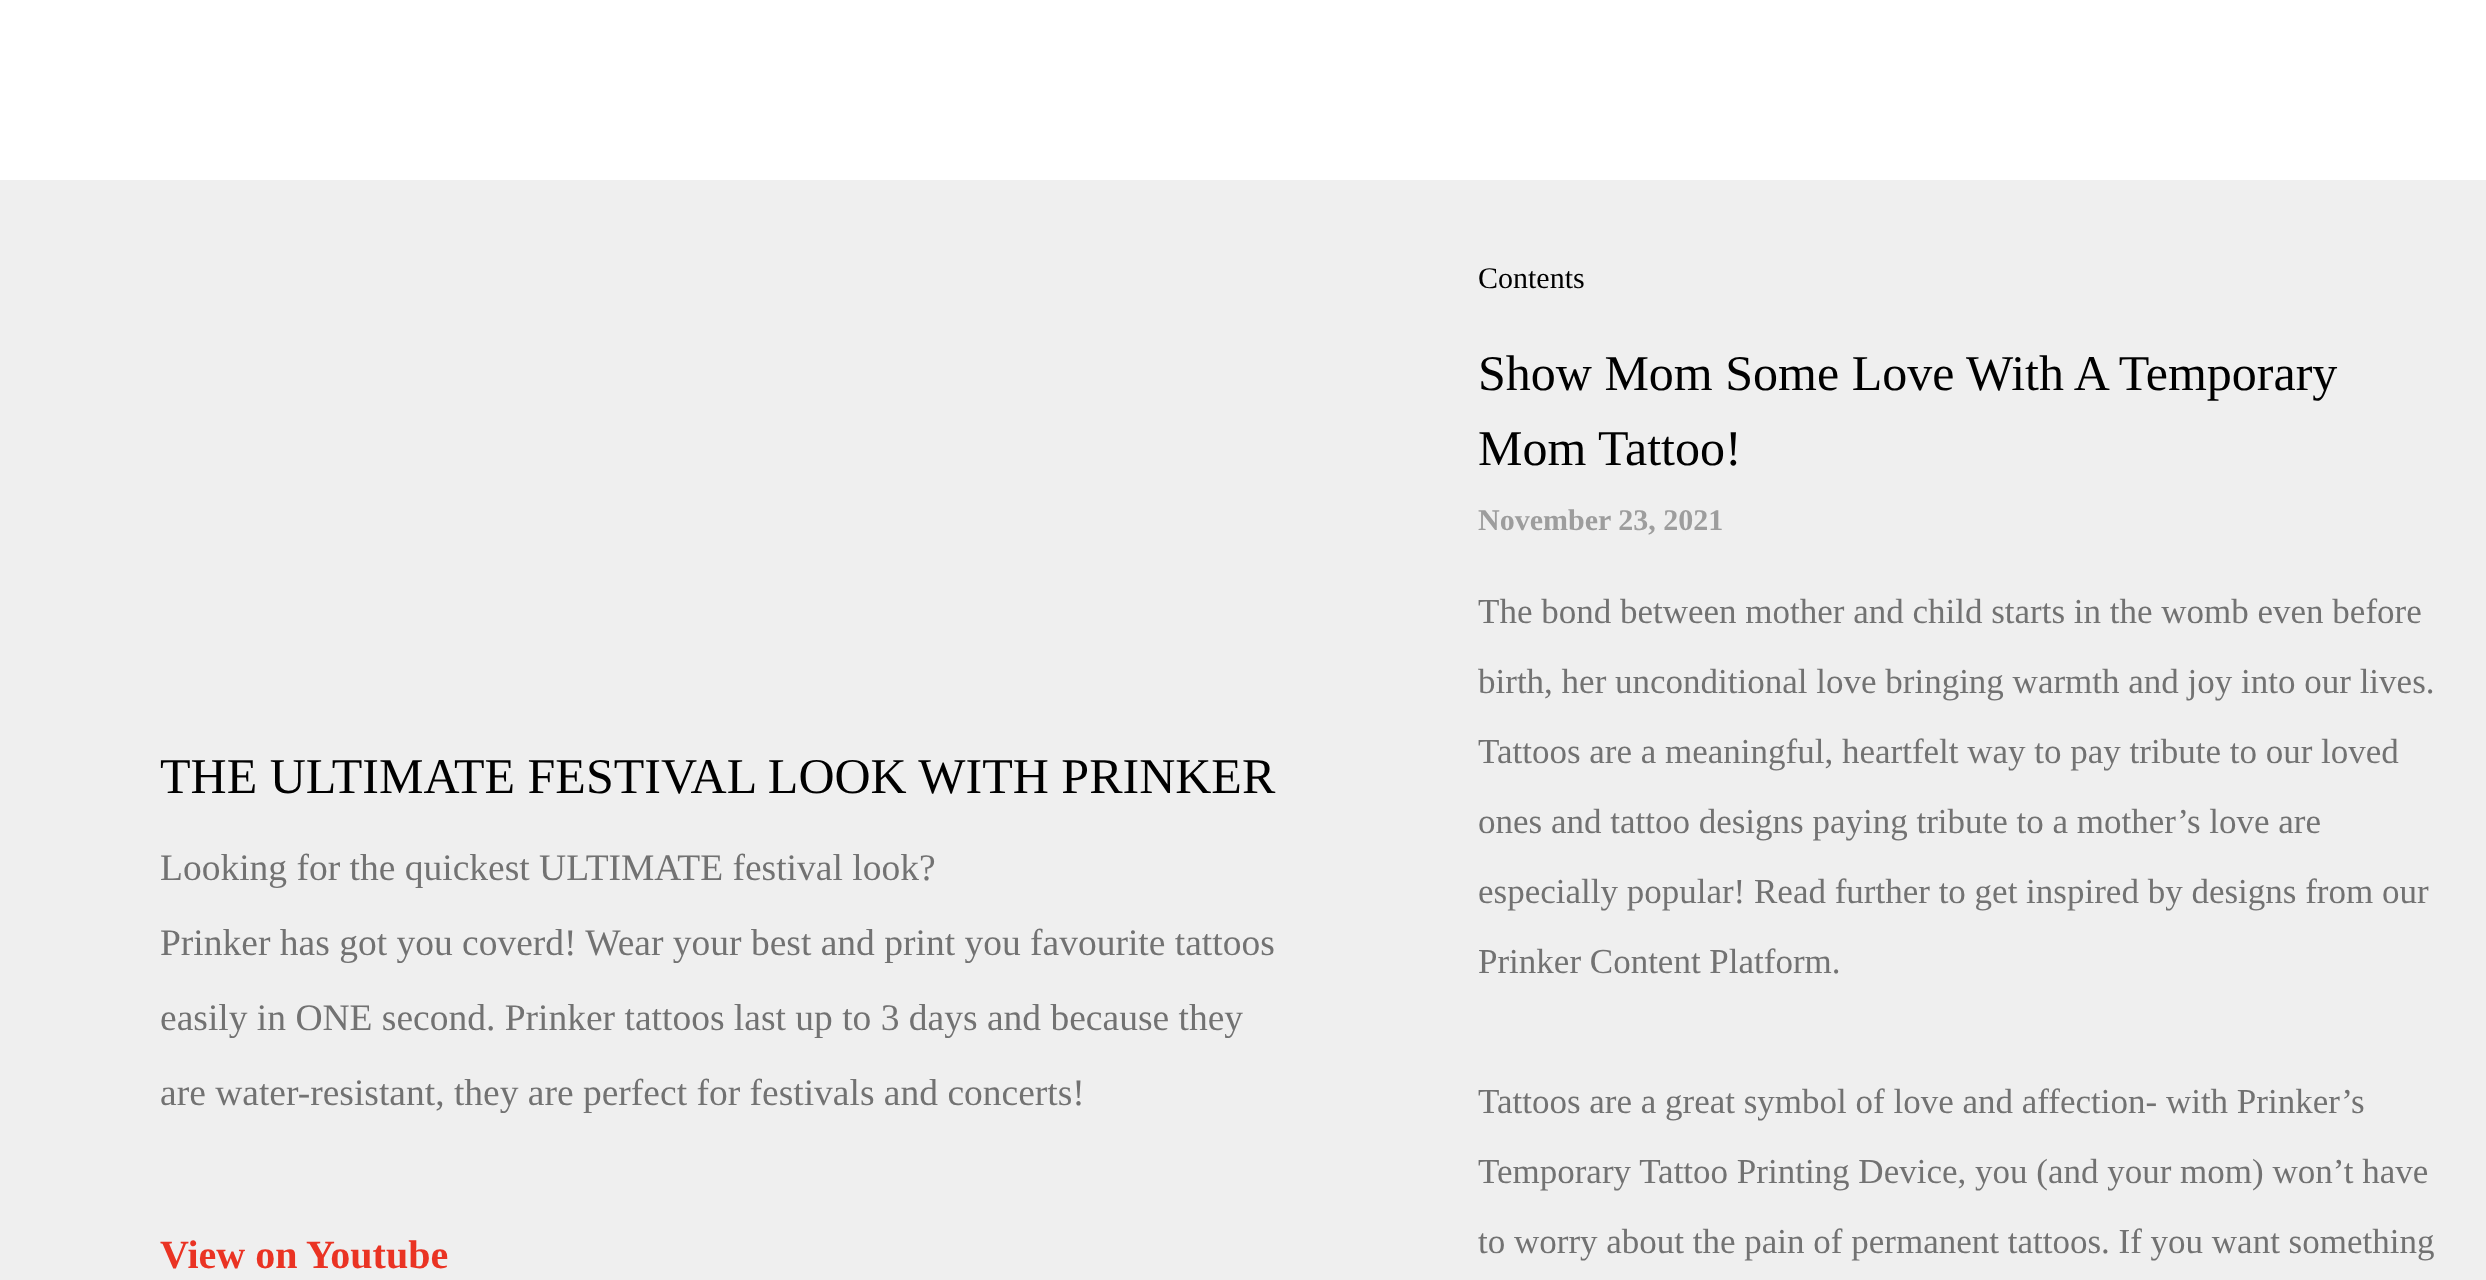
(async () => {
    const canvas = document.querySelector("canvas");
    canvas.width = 2486;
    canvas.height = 1280;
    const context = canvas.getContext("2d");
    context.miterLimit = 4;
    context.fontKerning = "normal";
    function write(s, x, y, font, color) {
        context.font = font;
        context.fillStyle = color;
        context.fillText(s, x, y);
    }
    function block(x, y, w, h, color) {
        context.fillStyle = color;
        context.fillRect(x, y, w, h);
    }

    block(0, 0, 2486, 1280, "rgb(255, 255, 255)");
    block(0, 180, 2486, 1100, "rgb(239, 239, 239)");
    write("THE ULTIMATE FESTIVAL LOOK WITH PRINKER", 160, 793, "50px Liberation Serif", "rgb(0, 0, 0)");
    write("Looking for the quickest ULTIMATE festival look?", 160, 880, "37.5px Liberation Serif", "rgb(114, 114, 114)");
    write("Prinker has got you coverd! Wear your best and print you favourite tattoos", 160, 955, "37.5px Liberation Serif", "rgb(114, 114, 114)");
    write("easily in ONE second. Prinker tattoos last up to 3 days and because they", 160, 1030, "37.5px Liberation Serif", "rgb(114, 114, 114)");
    write("are water-resistant, they are perfect for festivals and concerts!", 160, 1105, "37.5px Liberation Serif", "rgb(114, 114, 114)");
    write("View on Youtube", 160, 1268, "bold 40px Liberation Serif", "rgb(234, 51, 35)");
    write("Contents", 1478, 288, "30px Liberation Serif", "rgb(0, 0, 0)");
    write("Show Mom Some Love With A Temporary", 1478, 390, "50px Liberation Serif", "rgb(0, 0, 0)");
    write("Mom Tattoo!", 1478, 465, "50px Liberation Serif", "rgb(0, 0, 0)");
    write("November 23, 2021", 1478, 530, "bold 30px Liberation Serif", "rgb(157, 157, 157)");
    write("The bond between mother and child starts in the womb even before", 1478, 623, "35px Liberation Serif", "rgb(114, 114, 114)");
    write("birth, her unconditional love bringing warmth and joy into our lives.", 1478, 693, "35px Liberation Serif", "rgb(114, 114, 114)");
    write("Tattoos are a meaningful, heartfelt way to pay tribute to our loved", 1478, 763, "35px Liberation Serif", "rgb(114, 114, 114)");
    write("ones and tattoo designs paying tribute to a mother’s love are", 1478, 833, "35px Liberation Serif", "rgb(114, 114, 114)");
    write("especially popular! Read further to get inspired by designs from our", 1478, 903, "35px Liberation Serif", "rgb(114, 114, 114)");
    write("Prinker Content Platform.", 1478, 973, "35px Liberation Serif", "rgb(114, 114, 114)");
    write("Tattoos are a great symbol of love and affection- with Prinker’s", 1478, 1113, "35px Liberation Serif", "rgb(114, 114, 114)");
    write("Temporary Tattoo Printing Device, you (and your mom) won’t have", 1478, 1183, "35px Liberation Serif", "rgb(114, 114, 114)");
    write("to worry about the pain of permanent tattoos. If you want something", 1478, 1253, "35px Liberation Serif", "rgb(114, 114, 114)");
})();
